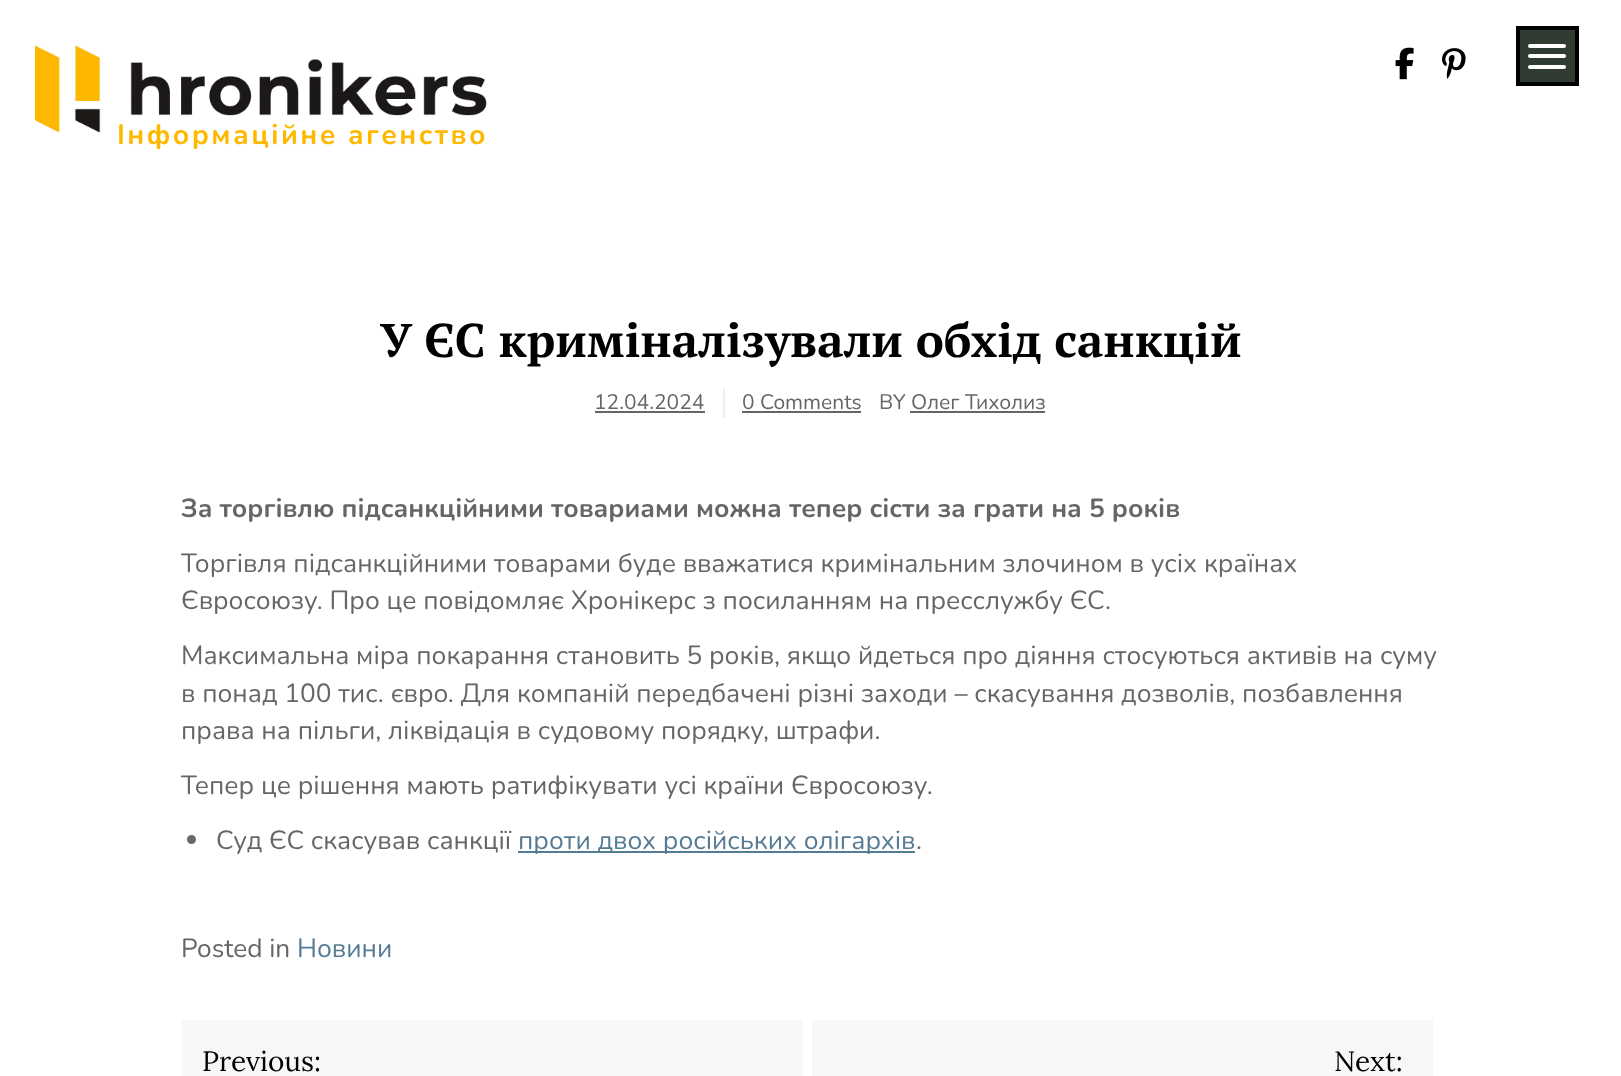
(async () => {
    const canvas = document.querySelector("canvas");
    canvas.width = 1621;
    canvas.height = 1076;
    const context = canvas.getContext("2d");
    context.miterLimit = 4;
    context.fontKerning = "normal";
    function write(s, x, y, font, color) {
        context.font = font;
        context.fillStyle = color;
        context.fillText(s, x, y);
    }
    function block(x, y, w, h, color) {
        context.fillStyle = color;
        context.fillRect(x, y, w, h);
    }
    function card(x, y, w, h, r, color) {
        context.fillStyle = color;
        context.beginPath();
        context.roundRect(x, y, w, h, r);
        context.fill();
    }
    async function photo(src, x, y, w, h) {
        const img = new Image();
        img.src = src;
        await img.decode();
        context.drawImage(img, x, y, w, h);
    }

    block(0, 0, 1621, 1076, "rgb(255, 255, 255)");
    await photo("media/1.png", 1395, 47, 19, 33);
    await photo("media/2.png", 1442, 48, 24, 31);
    context.fillStyle = "rgb(48, 59, 50)";
    context.beginPath();
    context.rect(1518, 28, 59, 56);
    context.fill();
    context.strokeStyle = "rgb(0, 0, 0)";
    context.lineWidth = 4;
    context.stroke();
    card(1528, 44, 38, 4, 2, "rgb(255, 255, 255)");
    card(1528, 54, 38, 4, 2, "rgb(255, 255, 255)");
    card(1528, 65, 38, 4, 2, "rgb(255, 255, 255)");
    context.letterSpacing = "2.45px";
    write("Інформаційне агенство", 117, 144, "bold 28px Nunito", "rgb(255, 184, 0)");
    await photo("media/3.png", 35, 45, 452, 88);
    context.letterSpacing = "0px";
    write("У ЄС криміналізували обхід санкцій", 380, 357, "bold 47.25px PT Serif", "rgb(0, 0, 0)");
    block(723, 389, 2, 29, "rgb(238, 238, 238)");
    write("12.04.2024", 594, 409, "21px Nunito", "rgb(102, 102, 102)");
    block(595, 411, 110, 2, "rgb(102, 102, 102)");
    write("0 Comments", 742, 409, "21px Nunito", "rgb(102, 102, 102)");
    block(742, 411, 119, 2, "rgb(102, 102, 102)");
    write("BY", 879, 409, "21px Nunito", "rgb(102, 102, 102)");
    write("Олег Тихолиз", 911, 409, "21px Nunito", "rgb(102, 102, 102)");
    block(910, 411, 135, 2, "rgb(102, 102, 102)");
    write("За торгівлю підсанкційними товариами можна тепер сісти за грати на 5 років", 181, 517, "bold 26.25px Nunito", "rgb(102, 102, 102)");
    write("Торгівля підсанкційними товарами буде вважатися кримінальним злочином в усіх країнах", 181, 572, "26.25px Nunito", "rgb(102, 102, 102)");
    write("Євросоюзу. Про це повідомляє Хронікерс з посиланням на пресслужбу ЄС.", 181, 609, "26.25px Nunito", "rgb(102, 102, 102)");
    write("Максимальна міра покарання становить 5 років, якщо йдеться про діяння стосуються активів на суму", 181, 664, "26.25px Nunito", "rgb(102, 102, 102)");
    write("в понад 100 тис. євро. Для компаній передбачені різні заходи – скасування дозволів, позбавлення", 181, 702, "26.25px Nunito", "rgb(102, 102, 102)");
    write("права на пільги, ліквідація в судовому порядку, штрафи.", 181, 739, "26.25px Nunito", "rgb(102, 102, 102)");
    write("Тепер це рішення мають ратифікувати усі країни Євросоюзу.", 181, 794, "26.25px Nunito", "rgb(102, 102, 102)");
    context.fillStyle = "rgb(105, 105, 105)";
    context.beginPath();
    context.arc(191.5, 839.5, 4.5, 0, Math.PI * 2);
    context.fill();
    write("Суд ЄС скасував санкції", 216, 849, "26.25px Nunito", "rgb(102, 102, 102)");
    block(518, 851, 397, 2, "rgb(86, 123, 149)");
    write("проти двох російських олігархів", 518, 849, "26.25px Nunito", "rgb(86, 123, 149)");
    write(".", 916, 849, "26.25px Nunito", "rgb(102, 102, 102)");
    write("Posted in", 181, 957, "26.25px Nunito", "rgb(102, 102, 102)");
    write("Новини", 297, 957, "26.25px Nunito", "rgb(86, 123, 149)");
    block(182, 1020, 621, 56, "rgb(247, 247, 247)");
    write("Previous:", 202, 1071, "28px Lora", "rgb(0, 0, 0)");
    block(812, 1020, 621, 56, "rgb(247, 247, 247)");
    write("Next:", 1334, 1071, "28px Lora", "rgb(0, 0, 0)");
})();
